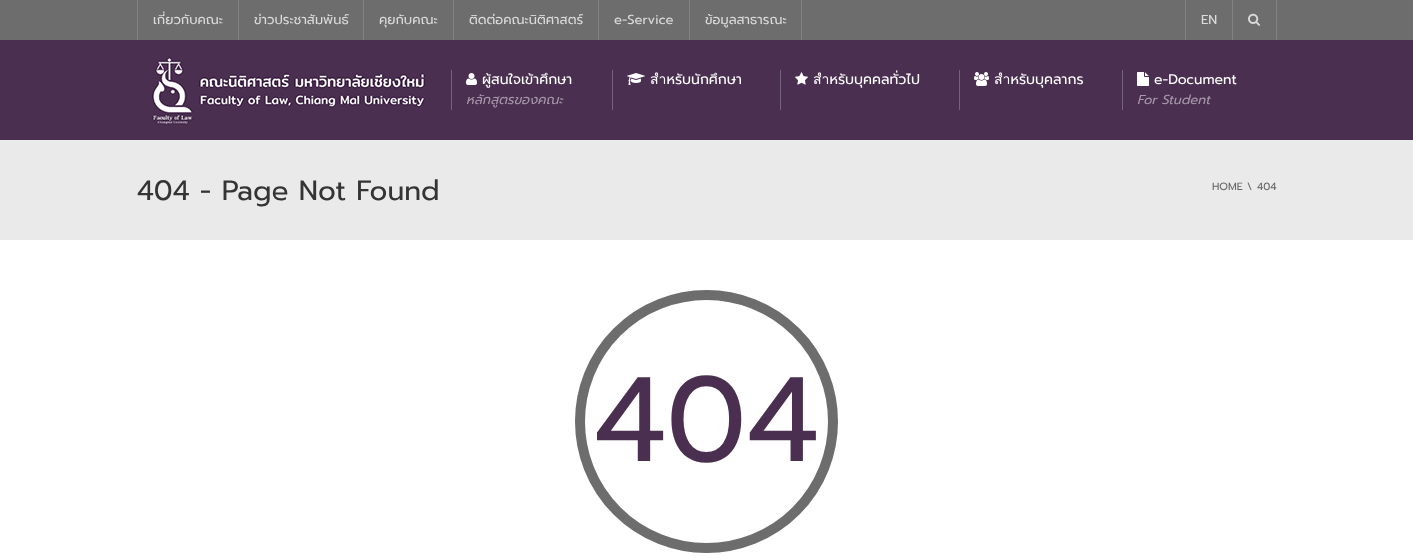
(async () => {
    const canvas = document.querySelector("canvas");
    canvas.width = 1413;
    canvas.height = 558;
    const context = canvas.getContext("2d");
    context.miterLimit = 4;
    context.fontKerning = "normal";
    function write(s, x, y, font, color) {
        context.font = font;
        context.fillStyle = color;
        context.fillText(s, x, y);
    }
    function block(x, y, w, h, color) {
        context.fillStyle = color;
        context.fillRect(x, y, w, h);
    }
    async function photo(src, x, y, w, h) {
        const img = new Image();
        img.src = src;
        await img.decode();
        context.drawImage(img, x, y, w, h);
    }

    block(0, 0, 1413, 558, "rgb(255, 255, 255)");
    block(0, 0, 1413, 40, "rgb(109, 109, 109)");
    block(137, 0, 1, 40, "rgb(131, 131, 131)");
    write("เกี่ยวกับคณะ", 153, 24, "13px Prompt", "rgb(219, 219, 219)");
    block(238, 0, 1, 40, "rgb(131, 131, 131)");
    write("ข่าวประชาสัมพันธ์", 254, 24, "13px Prompt", "rgb(219, 219, 219)");
    block(363, 0, 1, 40, "rgb(131, 131, 131)");
    write("คุยกับคณะ", 379, 24, "13px Prompt", "rgb(219, 219, 219)");
    block(453, 0, 1, 40, "rgb(131, 131, 131)");
    write("ติดต่อคณะนิติศาสตร์", 469, 24, "13px Prompt", "rgb(219, 219, 219)");
    block(598, 0, 1, 40, "rgb(131, 131, 131)");
    write("e-Service", 614, 24, "13px Prompt", "rgb(219, 219, 219)");
    block(801, 0, 1, 40, "rgb(131, 131, 131)");
    block(689, 0, 1, 40, "rgb(131, 131, 131)");
    write("ข้อมูลสาธารณะ", 705, 24, "13px Prompt", "rgb(219, 219, 219)");
    block(1185, 0, 1, 40, "rgb(131, 131, 131)");
    write("EN", 1201, 24, "13px Prompt", "rgb(219, 219, 219)");
    block(1276, 0, 1, 40, "rgb(131, 131, 131)");
    block(1232, 0, 1, 40, "rgb(131, 131, 131)");
    await photo("media/1.png", 1248, 13, 12, 13);
    block(0, 40, 1413, 100, "rgb(74, 47, 81)");
    await photo("media/2.png", 152, 57, 273, 68);
    block(451, 70, 1, 40, "rgb(119, 99, 125)");
    await photo("media/3.png", 466, 73, 11, 12);
    write("ผู้สนใจเข้าศึกษา", 482, 84, "14px Prompt", "rgb(255, 255, 255)");
    write("หลักสูตรของคณะ", 466, 104, "italic 13px Prompt", "rgb(165, 151, 168)");
    block(612, 70, 1, 40, "rgb(119, 99, 125)");
    await photo("media/4.png", 627, 73, 18, 12);
    write("สำหรับนักศึกษา", 650, 84, "14px Prompt", "rgb(255, 255, 255)");
    block(780, 70, 1, 40, "rgb(119, 99, 125)");
    await photo("media/5.png", 795, 72, 13, 13);
    write("สำหรับบุคคลทั่วไป", 813, 84, "14px Prompt", "rgb(255, 255, 255)");
    block(959, 70, 1, 40, "rgb(119, 99, 125)");
    await photo("media/6.png", 974, 72, 15, 14);
    write("สำหรับบุคลากร", 994, 84, "14px Prompt", "rgb(255, 255, 255)");
    block(1122, 70, 1, 40, "rgb(119, 99, 125)");
    await photo("media/7.png", 1137, 72, 12, 14);
    write("e-Document", 1154, 84, "14px Prompt", "rgb(255, 255, 255)");
    write("For Student", 1137, 104, "italic 13px Prompt", "rgb(165, 151, 168)");
    block(0, 140, 1413, 100, "rgb(234, 234, 234)");
    write("404 - Page Not Found", 137, 200, "28px Prompt", "rgb(52, 52, 52)");
    write("HOME", 1212, 190, "10.5px Prompt", "rgb(102, 102, 102)");
    write("\\", 1247, 190, "10.5px Prompt", "rgb(102, 102, 102)");
    write("404", 1257, 190, "10.5px Prompt", "rgb(102, 102, 102)");
    context.beginPath();
    context.arc(706.5, 421.5, 126.5, 0, Math.PI * 2);
    context.strokeStyle = "rgb(109, 109, 109)";
    context.lineWidth = 10;
    context.stroke();
    write("404", 594, 461, "120px Prompt", "rgb(74, 47, 81)");
})();
